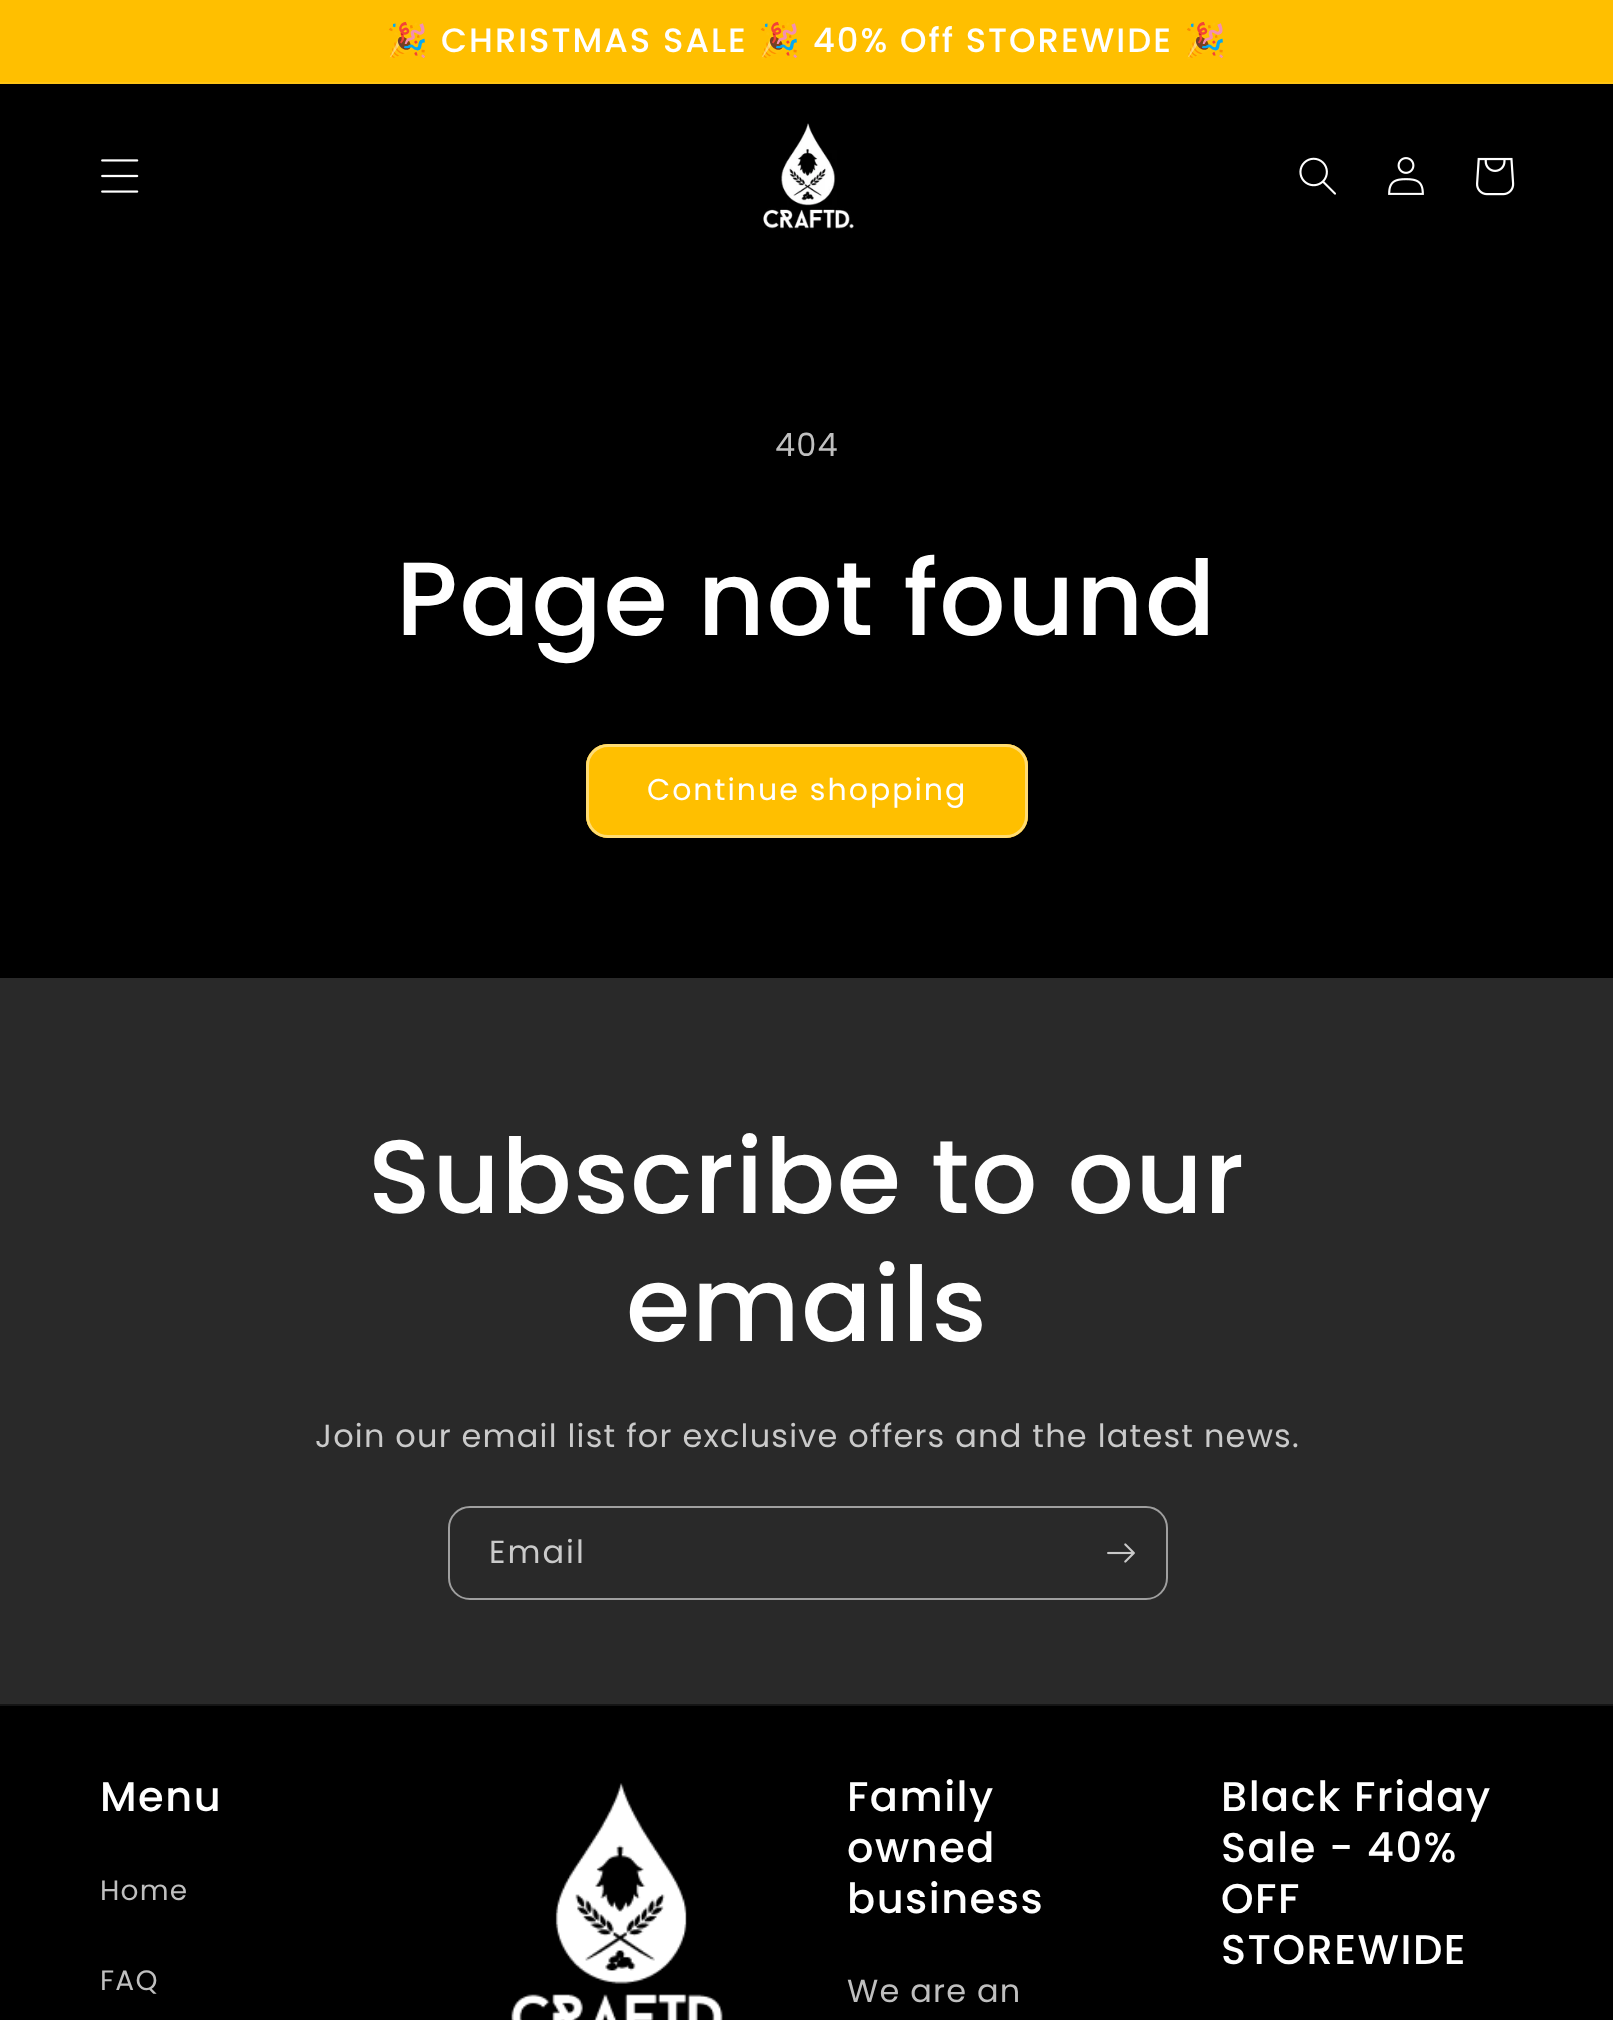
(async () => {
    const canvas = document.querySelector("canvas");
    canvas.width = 1613;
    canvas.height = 2020;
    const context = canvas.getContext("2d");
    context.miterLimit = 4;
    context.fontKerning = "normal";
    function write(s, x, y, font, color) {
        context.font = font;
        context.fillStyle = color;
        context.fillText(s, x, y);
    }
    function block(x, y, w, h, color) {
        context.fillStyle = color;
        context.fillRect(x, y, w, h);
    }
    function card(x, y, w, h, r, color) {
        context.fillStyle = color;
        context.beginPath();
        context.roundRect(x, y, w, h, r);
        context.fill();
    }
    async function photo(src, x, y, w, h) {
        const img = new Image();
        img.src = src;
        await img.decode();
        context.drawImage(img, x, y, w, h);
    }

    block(0, 0, 1613, 2020, "rgb(0, 0, 0)");
    block(0, 0, 1613, 82, "rgb(255, 191, 0)");
    block(0, 82, 1613, 2, "rgb(255, 196, 20)");
    context.letterSpacing = "2px";
    write("🎉", 386, 52, "33.75px Noto Color Emoji", "rgb(255, 255, 255)");
    write("CHRISTMAS SALE", 441, 52, "500 33.75px Poppins", "rgb(255, 255, 255)");
    write("🎉", 758, 52, "33.75px Noto Color Emoji", "rgb(255, 255, 255)");
    write("40% Off STOREWIDE", 813, 52, "500 33.75px Poppins", "rgb(255, 255, 255)");
    write("🎉", 1184, 52, "33.75px Noto Color Emoji", "rgb(255, 255, 255)");
    await photo("media/1.png", 101, 159, 38, 34);
    await photo("media/2.png", 763, 123, 91, 107);
    await photo("media/3.png", 1299, 157, 37, 38);
    await photo("media/4.png", 1388, 157, 36, 38);
    await photo("media/5.png", 1476, 157, 39, 39);
    context.letterSpacing = "1.2px";
    write("404", 775, 456, "32px Poppins", "rgb(191, 191, 191)");
    context.letterSpacing = "1.5px";
    write("Page not found", 396, 635, "500 104px Poppins", "rgb(255, 255, 255)");
    card(586, 744, 442, 94, 22, "rgb(255, 191, 0)");
    context.beginPath();
    context.roundRect(587, 745, 440, 92, 21);
    context.strokeStyle = "rgb(255, 191, 0)";
    context.lineWidth = 2;
    context.stroke();
    context.beginPath();
    context.roundRect(587.5, 745.5, 439, 91, 20.5);
    context.strokeStyle = "rgba(255, 255, 255, 0.45)";
    context.lineWidth = 3;
    context.stroke();
    context.letterSpacing = "2px";
    write("Continue shopping", 647, 800, "30px Poppins", "rgb(255, 255, 255)");
    block(0, 978, 1613, 726, "rgb(41, 41, 41)");
    context.letterSpacing = "1.5px";
    write("Subscribe to our", 368, 1213, "500 104px Poppins", "rgb(255, 255, 255)");
    write("emails", 626, 1341, "500 104px Poppins", "rgb(255, 255, 255)");
    context.letterSpacing = "1.2px";
    write("Join our email list for exclusive offers and the latest news.", 315, 1447, "32px Poppins", "rgb(202, 202, 202)");
    context.beginPath();
    context.roundRect(449, 1507, 718, 92, 21);
    context.strokeStyle = "rgb(159, 159, 159)";
    context.lineWidth = 2;
    context.stroke();
    context.letterSpacing = "2px";
    write("Email", 489, 1563, "32px Poppins", "rgb(202, 202, 202)");
    await photo("media/6.png", 1107, 1543, 28, 20);
    block(0, 1704, 1613, 2, "rgb(20, 20, 20)");
    context.letterSpacing = "1.5px";
    write("Menu", 100, 1811, "500 41.5px Poppins", "rgb(255, 255, 255)");
    context.letterSpacing = "1.2px";
    write("Home", 100, 1900, "28px Poppins", "rgb(191, 191, 191)");
    write("FAQ", 100, 1990, "28px Poppins", "rgb(191, 191, 191)");
    await photo("media/7.png", 511, 1783, 212, 237);
    context.letterSpacing = "1.5px";
    write("Family", 847, 1811, "500 41.5px Poppins", "rgb(255, 255, 255)");
    write("owned", 847, 1862, "500 41.5px Poppins", "rgb(255, 255, 255)");
    write("business", 847, 1913, "500 41.5px Poppins", "rgb(255, 255, 255)");
    context.letterSpacing = "1.2px";
    write("We are an", 847, 2002, "32px Poppins", "rgb(191, 191, 191)");
    context.letterSpacing = "1.5px";
    write("Black Friday", 1221, 1811, "500 41.5px Poppins", "rgb(255, 255, 255)");
    write("Sale - 40%", 1221, 1862, "500 41.5px Poppins", "rgb(255, 255, 255)");
    write("OFF", 1221, 1913, "500 41.5px Poppins", "rgb(255, 255, 255)");
    write("STOREWIDE", 1221, 1964, "500 41.5px Poppins", "rgb(255, 255, 255)");
})();
